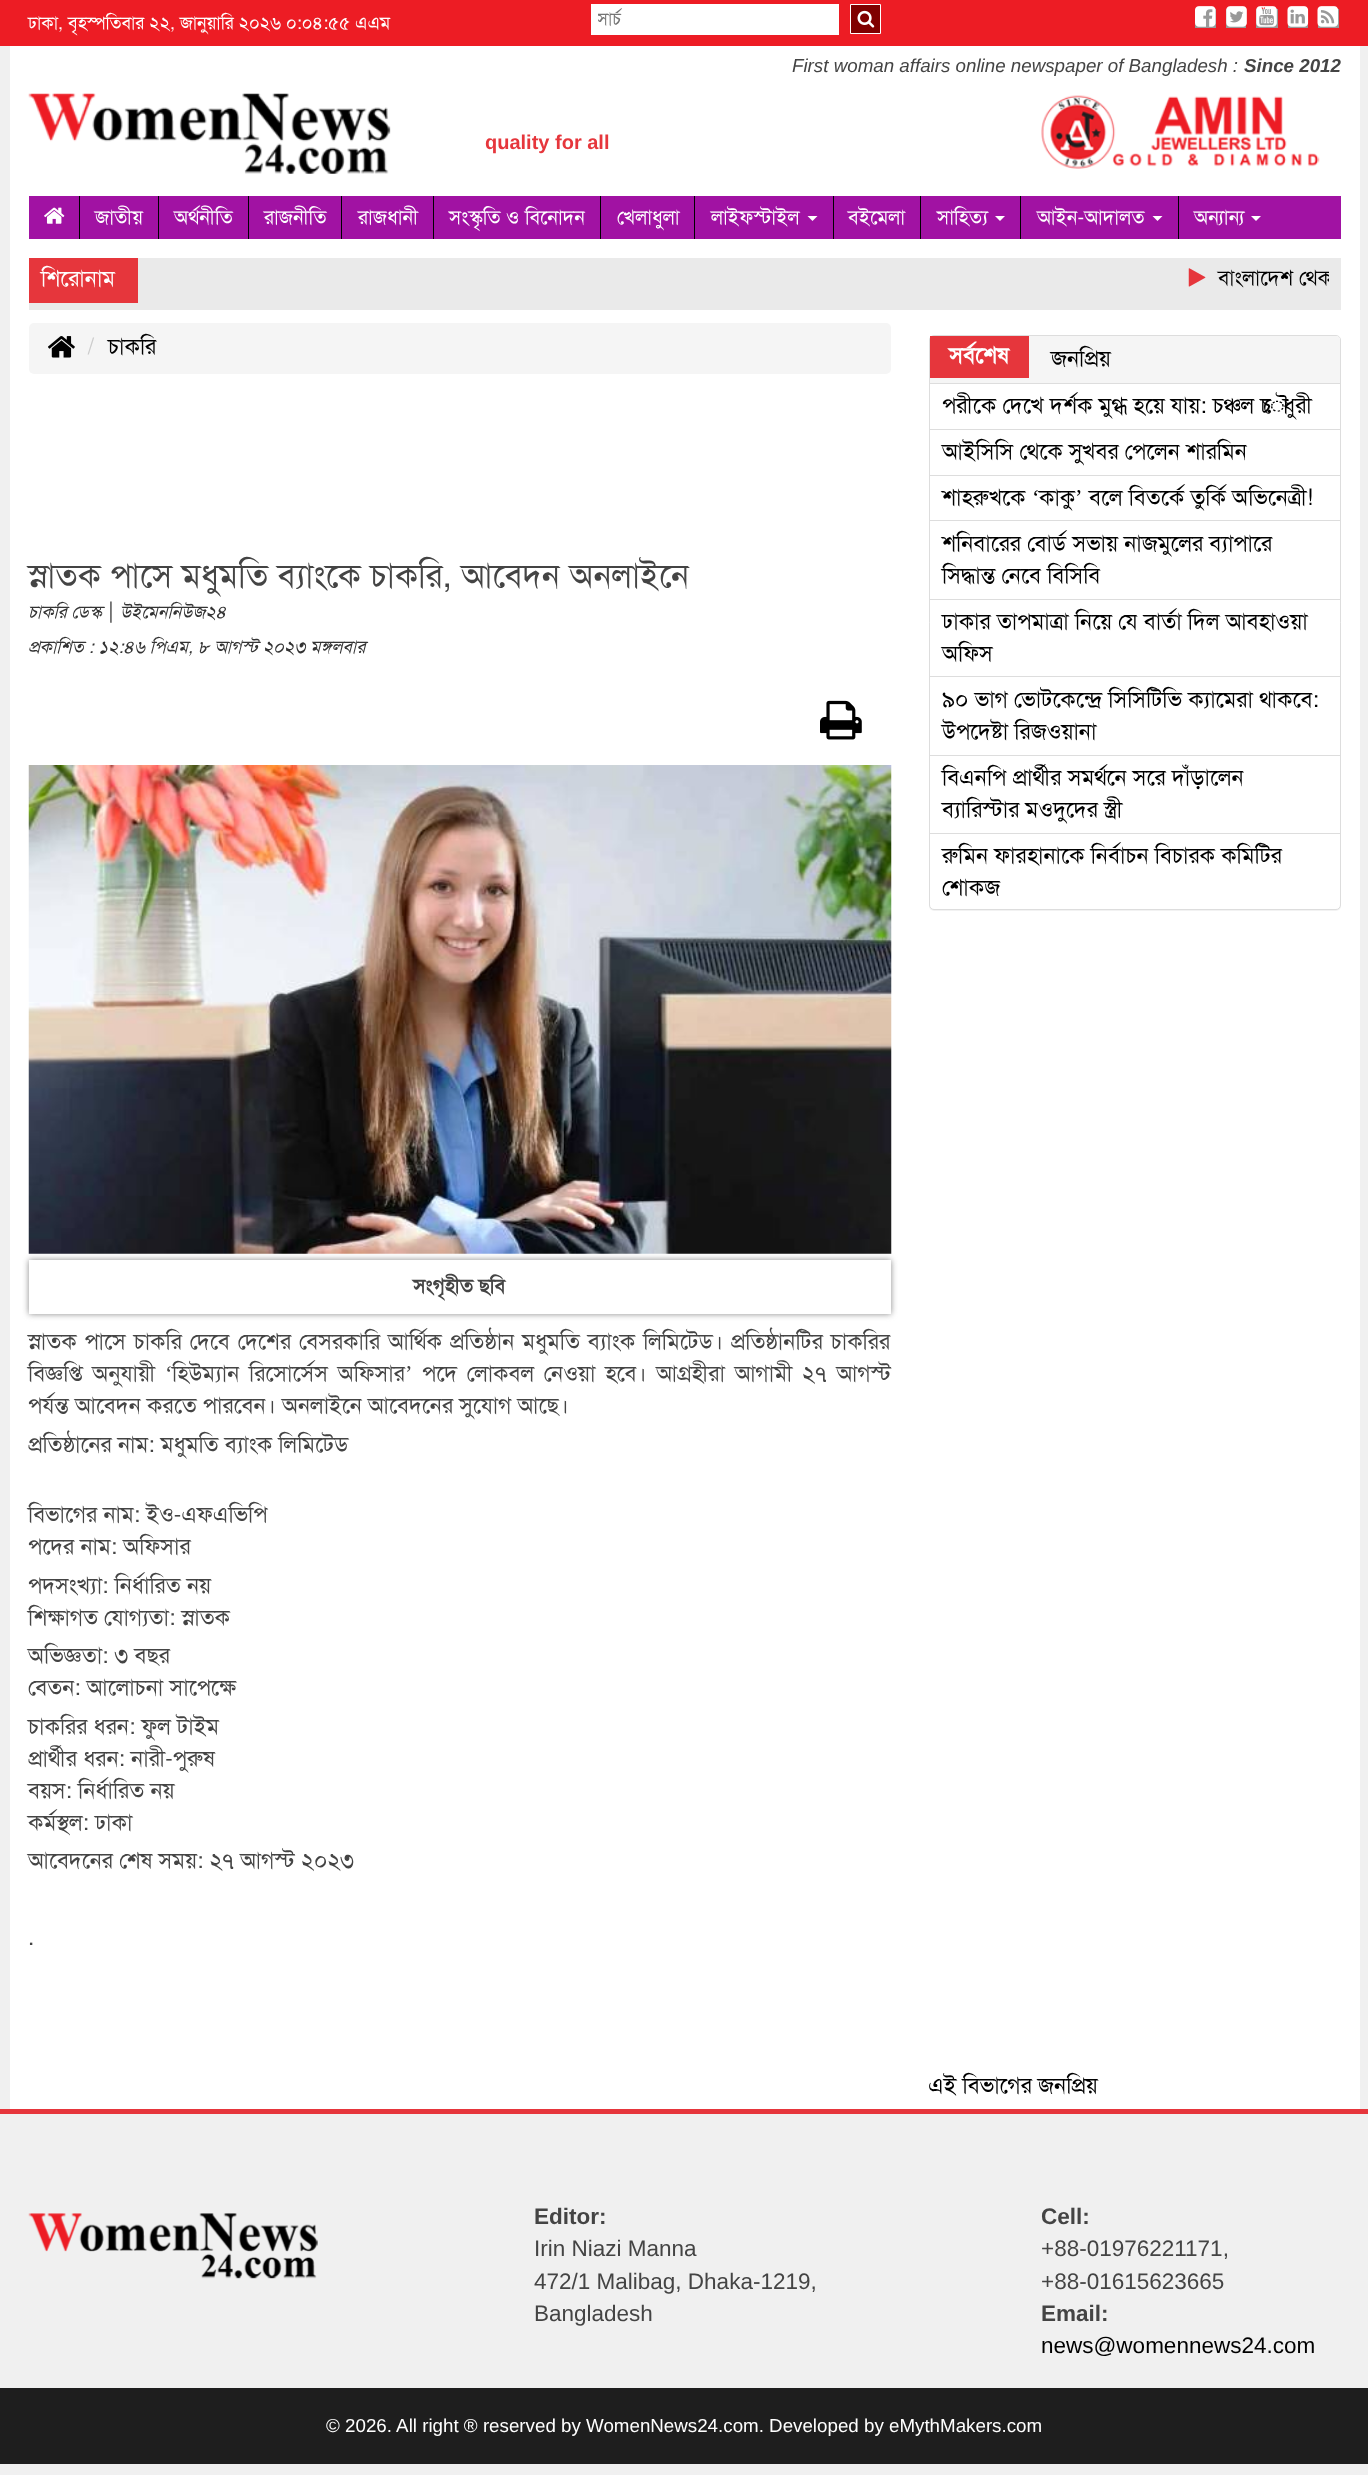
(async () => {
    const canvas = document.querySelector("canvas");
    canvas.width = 1368;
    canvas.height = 2475;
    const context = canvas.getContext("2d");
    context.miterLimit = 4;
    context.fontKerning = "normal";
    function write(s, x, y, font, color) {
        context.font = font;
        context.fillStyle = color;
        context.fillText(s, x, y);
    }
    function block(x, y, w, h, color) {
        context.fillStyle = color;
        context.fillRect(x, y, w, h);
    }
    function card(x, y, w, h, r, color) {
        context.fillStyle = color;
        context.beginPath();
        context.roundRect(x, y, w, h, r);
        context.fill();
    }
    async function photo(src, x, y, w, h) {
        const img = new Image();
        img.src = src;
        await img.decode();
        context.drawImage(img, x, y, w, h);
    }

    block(0, 0, 1368, 2475, "rgb(240, 240, 240)");
    block(0, 0, 1368, 46, "rgb(237, 28, 36)");
    write("ঢাকা, বৃহস্পতিবার ২২, জানুয়ারি ২০২৬ ০:০৪:৫৫ এএম", 28, 29, "18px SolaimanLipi", "rgb(255, 255, 255)");
    block(591, 4, 248, 31, "rgb(255, 255, 255)");
    context.save();
    context.beginPath();
    context.rect(598, 8, 235, 23);
    context.clip();
    write("সার্চ", 597, 25, "18px SolaimanLipi", "rgb(117, 117, 117)");
    context.restore();
    context.fillStyle = "rgb(128, 0, 0)";
    context.beginPath();
    context.rect(850.5, 4.5, 30, 29);
    context.fill();
    context.strokeStyle = "rgb(255, 255, 255)";
    context.stroke();
    await photo("media/1.png", 857, 10, 18, 18);
    block(1195, 9, 21, 19, "rgb(153, 153, 153)");
    await photo("media/2.png", 1195, 6, 21, 21);
    block(1226, 9, 20, 19, "rgb(153, 153, 153)");
    await photo("media/3.png", 1226, 6, 21, 21);
    block(1256, 9, 22, 19, "rgb(153, 153, 153)");
    await photo("media/4.png", 1256, 6, 21, 21);
    block(1288, 9, 20, 19, "rgb(153, 153, 153)");
    await photo("media/5.png", 1287, 6, 22, 21);
    block(1318, 9, 21, 19, "rgb(153, 153, 153)");
    await photo("media/6.png", 1317, 6, 22, 21);
    block(10, 46, 1350, 2063, "rgb(255, 255, 255)");
    write("First woman affairs online newspaper of Bangladesh :", 792, 72, "italic 18.75px Liberation Sans", "rgb(68, 68, 68)");
    write("Since 2012", 1244, 72, "italic bold 18.75px Liberation Sans", "rgb(68, 68, 68)");
    await photo("media/7.png", 28, 93, 363, 81);
    write("quality for all", 485, 149, "bold 20px Liberation Sans", "rgb(230, 54, 60)");
    await photo("media/8.png", 1041, 95, 279, 74);
    block(29, 196, 1312, 43, "rgb(161, 18, 163)");
    block(79, 196, 1, 43, "rgb(0, 0, 0)");
    await photo("media/9.png", 44, 207, 21, 17);
    block(158, 196, 1, 43, "rgb(0, 0, 0)");
    write("জাতীয়", 95, 224, "20px SolaimanLipi", "rgb(255, 255, 255)");
    block(248, 196, 1, 43, "rgb(0, 0, 0)");
    write("অর্থনীতি", 174, 224, "20px SolaimanLipi", "rgb(255, 255, 255)");
    block(341, 196, 1, 43, "rgb(0, 0, 0)");
    write("রাজনীতি", 264, 224, "20px SolaimanLipi", "rgb(255, 255, 255)");
    block(433, 196, 1, 43, "rgb(0, 0, 0)");
    write("রাজধানী", 358, 224, "20px SolaimanLipi", "rgb(255, 255, 255)");
    block(600, 196, 1, 43, "rgb(0, 0, 0)");
    write("সংস্কৃতি ও বিনোদন", 449, 224, "20px SolaimanLipi", "rgb(255, 255, 255)");
    block(694, 196, 1, 43, "rgb(0, 0, 0)");
    write("খেলাধুলা", 617, 224, "20px SolaimanLipi", "rgb(255, 255, 255)");
    block(833, 196, 1, 43, "rgb(0, 0, 0)");
    write("লাইফস্টাইল", 711, 224, "20px SolaimanLipi", "rgb(255, 255, 255)");
    context.beginPath();
    context.moveTo(807.5, 216);
    context.lineTo(817.5, 216);
    context.lineTo(812.5, 221);
    context.closePath();
    context.fill();
    block(920, 196, 1, 43, "rgb(0, 0, 0)");
    write("বইমেলা", 848, 224, "20px SolaimanLipi", "rgb(255, 255, 255)");
    block(1020, 196, 1, 43, "rgb(0, 0, 0)");
    write("সাহিত্য", 937, 224, "20px SolaimanLipi", "rgb(255, 255, 255)");
    context.beginPath();
    context.moveTo(995, 216);
    context.lineTo(1005, 216);
    context.lineTo(1000, 221);
    context.closePath();
    context.fill();
    block(1178, 196, 1, 43, "rgb(0, 0, 0)");
    write("আইন-আদালত", 1037, 224, "20px SolaimanLipi", "rgb(255, 255, 255)");
    context.beginPath();
    context.moveTo(1152.5, 216);
    context.lineTo(1162.5, 216);
    context.lineTo(1157.5, 221);
    context.closePath();
    context.fill();
    write("অন্যান্য", 1194, 224, "20px SolaimanLipi", "rgb(255, 255, 255)");
    context.beginPath();
    context.moveTo(1251, 216);
    context.lineTo(1261, 216);
    context.lineTo(1256, 221);
    context.closePath();
    context.fill();
    block(29, 258, 1312, 52, "rgb(234, 234, 234)");
    block(29, 258, 109, 45, "rgb(230, 54, 60)");
    write("শিরোনাম", 41, 286, "22.5px SolaimanLipi", "rgb(255, 255, 255)");
    await photo("media/10.png", 1188, 268, 18, 19);
    context.save();
    context.beginPath();
    context.rect(150, 264, 1179, 30);
    context.clip();
    write("বাংলাদেশ থেক", 1218, 285, "21.25px SolaimanLipi", "rgb(0, 0, 0)");
    context.restore();
    card(29, 323, 862, 51, 5, "rgb(245, 245, 245)");
    await photo("media/11.png", 48, 336, 27, 22);
    write("/", 87, 354, "22.5px SolaimanLipi", "rgb(204, 204, 204)");
    write("চাকরি", 108, 354, "22.5px SolaimanLipi", "rgb(0, 0, 0)");
    write("স্নাতক পাসে মধুমতি ব্যাংকে চাকরি, আবেদন অনলাইনে", 28, 587, "33.75px SolaimanLipi", "rgb(68, 68, 68)");
    write("চাকরি ডেস্ক", 28, 618, "italic 18px SolaimanLipi", "rgb(51, 51, 51)");
    write("|", 108, 618, "22.5px SolaimanLipi", "rgb(68, 68, 68)");
    write("উইমেননিউজ২৪", 120, 618, "italic 18px SolaimanLipi", "rgb(51, 51, 51)");
    write("প্রকাশিত : ১২:৪৬ পিএম, ৮ আগস্ট ২০২৩ মঙ্গলবার", 28, 653, "italic 18px SolaimanLipi", "rgb(51, 51, 51)");
    await photo("media/12.png", 820, 700, 42, 40);
    context.save();
    context.beginPath();
    context.moveTo(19, 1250);
    context.lineTo(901, 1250);
    context.lineTo(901, 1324);
    context.lineTo(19, 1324);
    context.closePath();
    context.moveTo(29, 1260);
    context.lineTo(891, 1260);
    context.lineTo(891, 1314);
    context.lineTo(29, 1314);
    context.closePath();
    context.clip("evenodd");
    context.fillStyle = "rgb(136, 136, 136)";
    context.filter = "blur(3px)";
    context.beginPath();
    context.rect(29, 1260, 862, 54);
    context.fill();
    context.filter = "none";
    context.restore();
    await photo("media/13.png", 28, 765, 864, 489);
    write("সংগৃহীত ছবি", 413, 1293, "bold 20.25px SolaimanLipi", "rgb(68, 68, 68)");
    context.wordSpacing = "1.6px";
    write("স্নাতক পাসে চাকরি দেবে দেশের বেসরকারি আর্থিক প্রতিষ্ঠান মধুমতি ব্যাংক লিমিটেড। প্রতিষ্ঠানটির চাকরির", 28, 1349, "22.5px SolaimanLipi", "rgb(68, 68, 68)");
    context.wordSpacing = "3.5px";
    write("বিজ্ঞপ্তি অনুযায়ী", 28, 1381, "22.5px SolaimanLipi", "rgb(68, 68, 68)");
    context.wordSpacing = "0px";
    write("‘", 165, 1381, "22.5px Liberation Serif", "rgb(68, 68, 68)");
    context.wordSpacing = "3.5px";
    write("হিউম্যান রিসোর্সেস অফিসার", 172, 1381, "22.5px SolaimanLipi", "rgb(68, 68, 68)");
    context.wordSpacing = "0px";
    write("’", 405, 1381, "22.5px Liberation Serif", "rgb(68, 68, 68)");
    context.wordSpacing = "3.5px";
    write("পদে লোকবল নেওয়া হবে। আগ্রহীরা আগামী ২৭ আগস্ট", 422, 1381, "22.5px SolaimanLipi", "rgb(68, 68, 68)");
    context.wordSpacing = "0px";
    write("পর্যন্ত আবেদন করতে পারবেন। অনলাইনে আবেদনের সুযোগ আছে।", 28, 1413, "22.5px SolaimanLipi", "rgb(68, 68, 68)");
    write("প্রতিষ্ঠানের নাম: মধুমতি ব্যাংক লিমিটেড", 28, 1452, "22.5px SolaimanLipi", "rgb(68, 68, 68)");
    write("বিভাগের নাম: ইও-এফএভিপি", 28, 1522, "22.5px SolaimanLipi", "rgb(68, 68, 68)");
    write("পদের নাম: অফিসার", 28, 1554, "22.5px SolaimanLipi", "rgb(68, 68, 68)");
    write("পদসংখ্যা: নির্ধারিত নয়", 28, 1593, "22.5px SolaimanLipi", "rgb(68, 68, 68)");
    write("শিক্ষাগত যোগ্যতা: স্নাতক", 28, 1625, "22.5px SolaimanLipi", "rgb(68, 68, 68)");
    write("অভিজ্ঞতা: ৩ বছর", 28, 1663, "22.5px SolaimanLipi", "rgb(68, 68, 68)");
    write("বেতন: আলোচনা সাপেক্ষে", 28, 1695, "22.5px SolaimanLipi", "rgb(68, 68, 68)");
    write("চাকরির ধরন: ফুল টাইম", 28, 1734, "22.5px SolaimanLipi", "rgb(68, 68, 68)");
    write("প্রার্থীর ধরন: নারী-পুরুষ", 28, 1766, "22.5px SolaimanLipi", "rgb(68, 68, 68)");
    write("বয়স: নির্ধারিত নয়", 28, 1798, "22.5px SolaimanLipi", "rgb(68, 68, 68)");
    write("কর্মস্থল: ঢাকা", 28, 1830, "22.5px SolaimanLipi", "rgb(68, 68, 68)");
    write("আবেদনের শেষ সময়: ২৭ আগস্ট ২০২৩", 28, 1868, "22.5px SolaimanLipi", "rgb(68, 68, 68)");
    write(".", 28, 1945, "22.5px SolaimanLipi", "rgb(68, 68, 68)");
    context.fillStyle = "rgba(0, 0, 0, 0.05)";
    context.filter = "blur(0.5px)";
    context.beginPath();
    context.roundRect(929, 336, 412, 575, 5);
    context.fill();
    context.filter = "none";
    context.fillStyle = "rgb(255, 255, 255)";
    context.beginPath();
    context.roundRect(929.5, 335.5, 411, 574, 4.5);
    context.fill();
    context.strokeStyle = "rgb(221, 221, 221)";
    context.stroke();
    context.fillStyle = "rgb(245, 245, 245)";
    context.beginPath();
    context.roundRect(930, 336, 410, 48, [4, 4, 0, 0]);
    context.fill();
    block(930, 383, 410, 1, "rgb(221, 221, 221)");
    block(930, 336, 99, 42, "rgb(230, 54, 60)");
    write("সর্বশেষ", 949, 363, "bold 22.5px SolaimanLipi", "rgb(255, 255, 255)");
    write("জনপ্রিয়", 1051, 366, "22.5px SolaimanLipi", "rgb(0, 0, 0)");
    block(930, 429, 410, 1, "rgb(221, 221, 221)");
    write("পরীকে দেখে দর্শক মুগ্ধ হয়ে যায়: চঞ্চল চৌধুরী", 942, 413, "22.5px SolaimanLipi", "rgb(0, 0, 0)");
    block(930, 475, 410, 1, "rgb(221, 221, 221)");
    write("আইসিসি থেকে সুখবর পেলেন শারমিন", 942, 459, "22.5px SolaimanLipi", "rgb(0, 0, 0)");
    block(930, 520, 410, 1, "rgb(221, 221, 221)");
    write("শাহরুখকে", 942, 505, "22.5px SolaimanLipi", "rgb(0, 0, 0)");
    write("‘", 1032, 505, "22.5px Liberation Serif", "rgb(0, 0, 0)");
    write("কাকু", 1039, 505, "22.5px SolaimanLipi", "rgb(0, 0, 0)");
    write("’", 1075, 505, "22.5px Liberation Serif", "rgb(0, 0, 0)");
    write("বলে বিতর্কে তুর্কি অভিনেত্রী!", 1089, 505, "22.5px SolaimanLipi", "rgb(0, 0, 0)");
    block(930, 599, 410, 1, "rgb(221, 221, 221)");
    write("শনিবারের বোর্ড সভায় নাজমুলের ব্যাপারে", 942, 551, "22.5px SolaimanLipi", "rgb(0, 0, 0)");
    write("সিদ্ধান্ত নেবে বিসিবি", 942, 583, "22.5px SolaimanLipi", "rgb(0, 0, 0)");
    block(930, 676, 410, 1, "rgb(221, 221, 221)");
    write("ঢাকার তাপমাত্রা নিয়ে যে বার্তা দিল আবহাওয়া", 942, 629, "22.5px SolaimanLipi", "rgb(0, 0, 0)");
    write("অফিস", 942, 661, "22.5px SolaimanLipi", "rgb(0, 0, 0)");
    block(930, 755, 410, 1, "rgb(221, 221, 221)");
    write("৯০ ভাগ ভোটকেন্দ্রে সিসিটিভি ক্যামেরা থাকবে:", 942, 707, "22.5px SolaimanLipi", "rgb(0, 0, 0)");
    write("উপদেষ্টা রিজওয়ানা", 942, 739, "22.5px SolaimanLipi", "rgb(0, 0, 0)");
    block(930, 833, 410, 1, "rgb(221, 221, 221)");
    write("বিএনপি প্রার্থীর সমর্থনে সরে দাঁড়ালেন", 942, 785, "22.5px SolaimanLipi", "rgb(0, 0, 0)");
    write("ব্যারিস্টার মওদুদের স্ত্রী", 942, 817, "22.5px SolaimanLipi", "rgb(0, 0, 0)");
    write("রুমিন ফারহানাকে নির্বাচন বিচারক কমিটির", 942, 863, "22.5px SolaimanLipi", "rgb(0, 0, 0)");
    write("শোকজ", 942, 895, "22.5px SolaimanLipi", "rgb(0, 0, 0)");
    write("এই বিভাগের জনপ্রিয়", 928, 2093, "22.5px SolaimanLipi", "rgb(0, 0, 0)");
    block(0, 2109, 1368, 5, "rgb(230, 54, 60)");
    await photo("media/14.png", 28, 2213, 290, 66);
    write("Editor:", 534, 2224, "bold 22.5px Liberation Sans", "rgb(68, 68, 68)");
    write("Irin Niazi Manna", 534, 2256, "22.5px Liberation Sans", "rgb(68, 68, 68)");
    write("472/1 Malibag, Dhaka-1219,", 534, 2289, "22.5px Liberation Sans", "rgb(68, 68, 68)");
    write("Bangladesh", 534, 2321, "22.5px Liberation Sans", "rgb(68, 68, 68)");
    write("Cell:", 1041, 2224, "bold 22.5px Liberation Sans", "rgb(68, 68, 68)");
    write("+88-01976221171,", 1041, 2256, "22.5px Liberation Sans", "rgb(68, 68, 68)");
    write("+88-01615623665", 1041, 2289, "22.5px Liberation Sans", "rgb(68, 68, 68)");
    write("Email:", 1041, 2321, "bold 22.5px Liberation Sans", "rgb(68, 68, 68)");
    write("news@womennews24.com", 1041, 2353, "22.5px Liberation Sans", "rgb(0, 0, 0)");
    block(0, 2388, 1368, 76, "rgb(30, 30, 30)");
    write("© 2026. All right ® reserved by WomenNews24.com. Developed by eMythMakers.com", 326, 2432, "18.75px Liberation Sans", "rgb(255, 255, 255)");
})();
